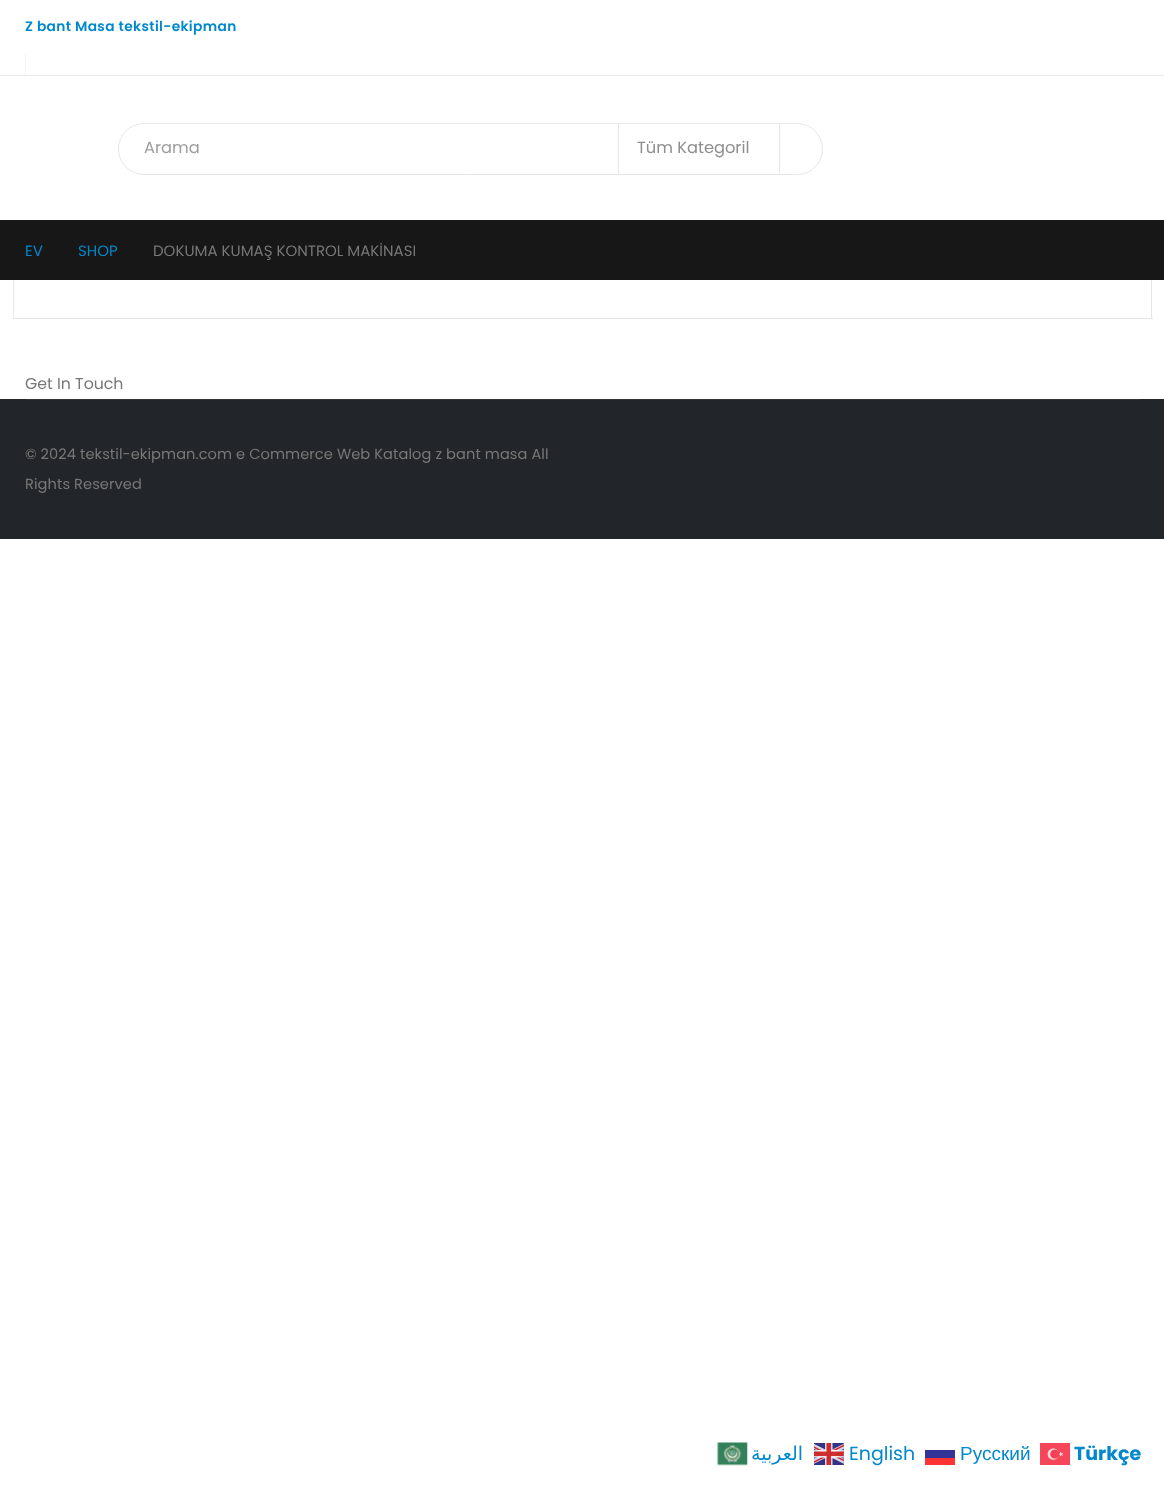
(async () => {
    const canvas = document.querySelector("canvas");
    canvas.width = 1164;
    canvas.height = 1487;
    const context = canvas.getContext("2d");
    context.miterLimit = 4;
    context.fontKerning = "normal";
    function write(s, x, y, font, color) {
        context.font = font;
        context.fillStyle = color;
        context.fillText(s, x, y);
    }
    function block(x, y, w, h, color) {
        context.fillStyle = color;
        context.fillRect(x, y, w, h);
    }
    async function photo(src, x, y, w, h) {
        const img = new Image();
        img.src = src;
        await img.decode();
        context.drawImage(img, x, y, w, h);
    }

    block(0, 0, 1164, 1487, "rgb(255, 255, 255)");
    block(0, 75, 1164, 1, "rgb(231, 231, 231)");
    context.letterSpacing = "0.35px";
    write("Z bant Masa tekstil-ekipman", 25, 31, "600 13.75px Poppins", "rgb(0, 136, 204)");
    block(25, 54, 1, 21, "rgb(245, 245, 245)");
    context.beginPath();
    context.roundRect(118.5, 123.5, 704, 51, 25.5);
    context.strokeStyle = "rgb(231, 231, 231)";
    context.stroke();
    context.letterSpacing = "0px";
    write("Arama", 144, 153, "16.25px Poppins", "rgb(158, 158, 158)");
    block(779, 124, 1, 50, "rgb(231, 231, 231)");
    block(618, 124, 1, 50, "rgb(231, 231, 231)");
    write("Tüm Kategoril", 637, 153, "16.25px Poppins", "rgb(141, 141, 141)");
    block(0, 220, 1164, 60, "rgb(23, 23, 23)");
    write("EV", 25, 256, "15px Poppins", "rgb(0, 136, 204)");
    write("SHOP", 78, 256, "15px Poppins", "rgb(0, 136, 204)");
    write("DOKUMA KUMAŞ KONTROL MAKİNASI", 153, 256, "15px Poppins", "rgb(119, 119, 119)");
    block(1151, 280, 1, 39, "rgb(231, 231, 231)");
    block(13, 318, 1140, 1, "rgb(231, 231, 231)");
    block(13, 280, 1, 39, "rgb(231, 231, 231)");
    write("Get In Touch", 25, 389, "15.75px Poppins", "rgb(119, 119, 119)");
    block(0, 399, 1164, 140, "rgb(34, 37, 41)");
    block(25, 399, 1115, 1, "rgb(49, 52, 56)");
    context.letterSpacing = "0.08px";
    write("© 2024 tekstil-ekipman.com e Commerce Web Katalog z bant masa All", 25, 459, "14.6px Poppins", "rgb(119, 119, 119)");
    write("Rights Reserved", 25, 489, "14.6px Poppins", "rgb(119, 119, 119)");
    await photo("media/1.png", 717, 1442, 31, 24);
    context.letterSpacing = "0px";
    context.direction = "rtl";
    write("العربية", 803, 1460, "19px DejaVu Sans", "rgb(0, 136, 204)");
    await photo("media/2.png", 814, 1443, 30, 22);
    context.direction = "ltr";
    write("English", 849, 1460, "19px Poppins", "rgb(0, 136, 204)");
    write("Русский", 960, 1460, "19px Liberation Sans", "rgb(0, 136, 204)");
    block(925, 1450, 30, 8, "rgb(52, 52, 152)");
    block(925, 1458, 30, 7, "rgb(254, 52, 52)");
    await photo("media/3.png", 1040, 1443, 30, 22);
    write("Türkçe", 1074, 1460, "bold 19px Poppins", "rgb(0, 136, 204)");
})();
